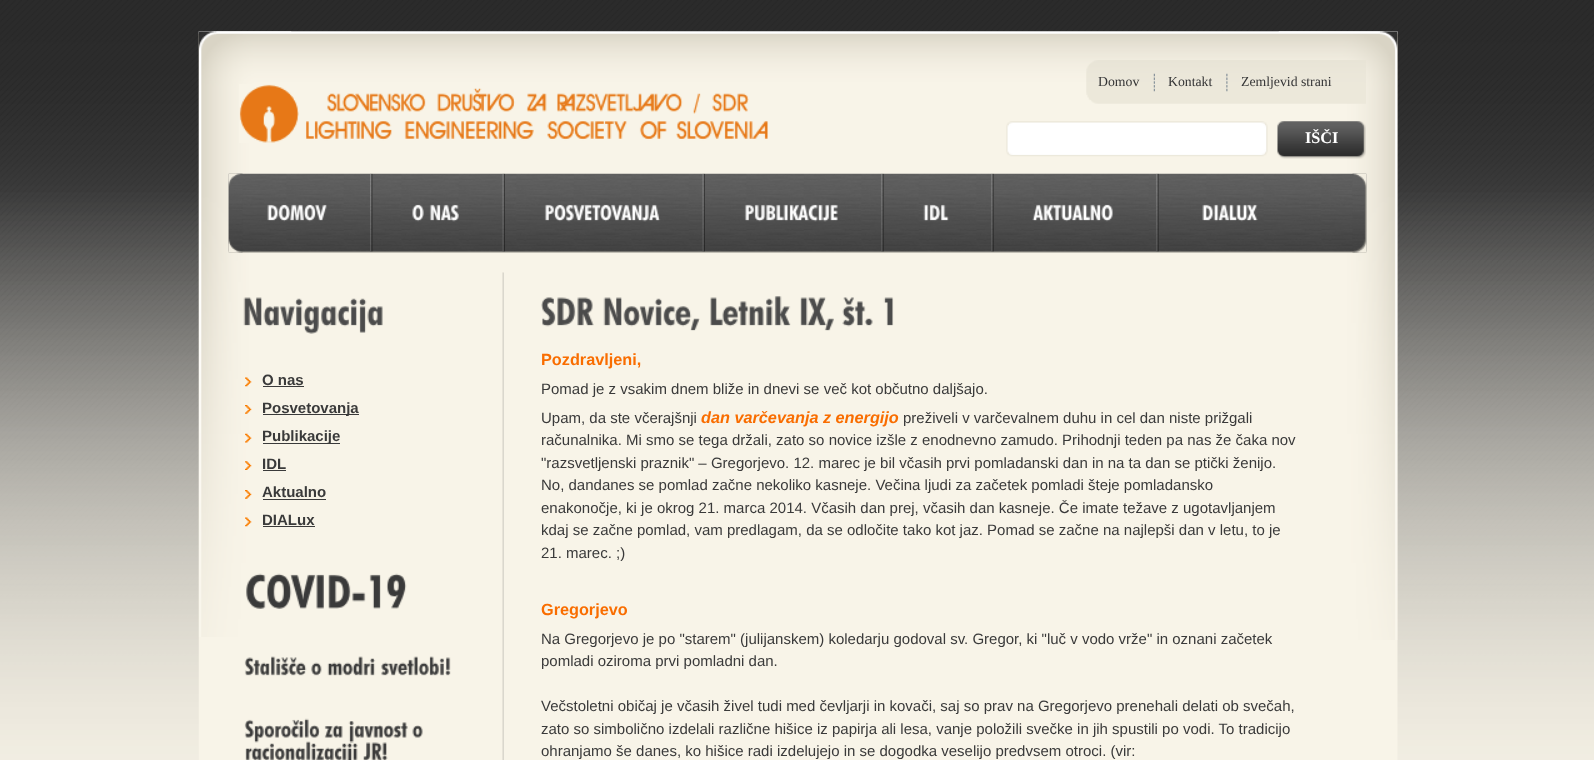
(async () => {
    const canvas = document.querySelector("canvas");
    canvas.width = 1594;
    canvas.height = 760;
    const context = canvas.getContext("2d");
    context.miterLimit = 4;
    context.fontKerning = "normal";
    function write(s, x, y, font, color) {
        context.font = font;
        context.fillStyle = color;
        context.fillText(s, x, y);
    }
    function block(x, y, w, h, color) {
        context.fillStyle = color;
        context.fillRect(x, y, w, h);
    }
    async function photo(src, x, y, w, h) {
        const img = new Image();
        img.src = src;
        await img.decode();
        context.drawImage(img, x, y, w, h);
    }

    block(0, 0, 1594, 760, "rgb(255, 255, 255)");
    await photo("media/1.png", 0, 0, 1594, 760);
    await photo("media/2.png", 198, 31, 1200, 729);
    await photo("media/3.png", 198, 31, 94, 606);
    await photo("media/4.png", 1278, 31, 120, 609);
    await photo("media/5.png", 239, 84, 529, 59);
    await photo("media/6.png", 1086, 60, 280, 44);
    write("Domov", 1098, 86, "13.75px Liberation Serif", "rgb(52, 52, 53)");
    await photo("media/7.png", 1153, 73, 2, 19);
    write("Kontakt", 1168, 86, "13.75px Liberation Serif", "rgb(52, 52, 53)");
    await photo("media/8.png", 1226, 73, 2, 19);
    write("Zemljevid strani", 1241, 86, "13.75px Liberation Serif", "rgb(52, 52, 53)");
    await photo("media/9.png", 1006, 121, 262, 36);
    await photo("media/10.png", 1277, 121, 89, 38);
    write("IŠČI", 1305, 143, "bold 16.25px Liberation Serif", "rgb(255, 255, 255)");
    await photo("media/11.png", 228, 173, 1139, 80);
    await photo("media/12.png", 228, 173, 15, 80);
    await photo("media/13.png", 1352, 173, 15, 80);
    await photo("media/14.png", 267, 204, 60, 18);
    await photo("media/15.png", 370, 173, 3, 79);
    await photo("media/16.png", 412, 204, 12, 18);
    await photo("media/17.png", 429, 204, 30, 18);
    await photo("media/18.png", 502, 173, 3, 79);
    await photo("media/19.png", 544, 204, 117, 18);
    await photo("media/20.png", 702, 173, 3, 79);
    await photo("media/21.png", 744, 204, 94, 18);
    await photo("media/22.png", 881, 173, 3, 79);
    await photo("media/23.png", 923, 204, 26, 17);
    await photo("media/24.png", 991, 173, 3, 79);
    await photo("media/25.png", 1032, 204, 81, 18);
    await photo("media/26.png", 1156, 173, 3, 79);
    await photo("media/27.png", 1202, 204, 56, 18);
    await photo("media/28.png", 502, 272, 2, 488);
    await photo("media/29.png", 243, 297, 140, 37);
    await photo("media/30.png", 245, 377, 7, 10);
    write("O nas", 262, 385, "bold 15px Liberation Sans", "rgb(58, 58, 58)");
    block(263, 386, 41, 1, "rgb(58, 58, 58)");
    await photo("media/31.png", 245, 405, 7, 9);
    block(263, 414, 96, 1, "rgb(58, 58, 58)");
    write("Posvetovanja", 262, 413, "bold 15px Liberation Sans", "rgb(58, 58, 58)");
    await photo("media/32.png", 245, 433, 7, 10);
    block(263, 443, 77, 1, "rgb(58, 58, 58)");
    write("Publikacije", 262, 441, "bold 15px Liberation Sans", "rgb(58, 58, 58)");
    await photo("media/33.png", 245, 461, 7, 9);
    write("IDL", 262, 469, "bold 15px Liberation Sans", "rgb(58, 58, 58)");
    block(263, 470, 23, 1, "rgb(58, 58, 58)");
    await photo("media/34.png", 245, 490, 7, 9);
    write("Aktualno", 262, 497, "bold 15px Liberation Sans", "rgb(58, 58, 58)");
    block(263, 499, 63, 1, "rgb(58, 58, 58)");
    await photo("media/35.png", 245, 517, 7, 10);
    write("DIALux", 262, 525, "bold 15px Liberation Sans", "rgb(58, 58, 58)");
    block(263, 526, 52, 1, "rgb(58, 58, 58)");
    await photo("media/36.png", 246, 573, 161, 36);
    await photo("media/37.png", 244, 656, 63, 20);
    await photo("media/38.png", 311, 662, 11, 14);
    await photo("media/39.png", 327, 656, 49, 20);
    await photo("media/40.png", 381, 656, 70, 20);
    await photo("media/41.png", 244, 718, 76, 25);
    await photo("media/42.png", 324, 725, 19, 13);
    await photo("media/43.png", 348, 721, 60, 22);
    await photo("media/44.png", 412, 725, 11, 13);
    await photo("media/45.png", 245, 741, 113, 19);
    await photo("media/46.png", 363, 742, 25, 18);
    await photo("media/47.png", 541, 297, 53, 30);
    await photo("media/48.png", 603, 297, 97, 34);
    await photo("media/49.png", 710, 296, 81, 31);
    await photo("media/50.png", 800, 297, 34, 34);
    await photo("media/51.png", 842, 297, 31, 30);
    await photo("media/52.png", 883, 297, 11, 29);
    write("Pozdravljeni,", 541, 365, "bold 16.25px Liberation Sans", "rgb(249, 109, 0)");
    write("Pomad je z vsakim dnem bliže in dnevi se več kot občutno daljšajo.", 541, 394, "15px Liberation Sans", "rgb(58, 58, 58)");
    write("Upam, da ste včerajšnji", 541, 423, "15px Liberation Sans", "rgb(58, 58, 58)");
    write("dan varčevanja z energijo", 701, 423, "italic bold 16.25px Liberation Sans", "rgb(249, 109, 0)");
    write("preživeli v varčevalnem duhu in cel dan niste prižgali", 903, 423, "15px Liberation Sans", "rgb(58, 58, 58)");
    write("računalnika. Mi smo se tega držali, zato so novice izšle z enodnevno zamudo. Prihodnji teden pa nas že čaka nov", 541, 445, "15px Liberation Sans", "rgb(58, 58, 58)");
    write("\"razsvetljenski praznik\" – Gregorjevo. 12. marec je bil včasih prvi pomladanski dan in na ta dan se ptički ženijo.", 541, 468, "15px Liberation Sans", "rgb(58, 58, 58)");
    write("No, dandanes se pomlad začne nekoliko kasneje. Večina ljudi za začetek pomladi šteje pomladansko", 541, 490, "15px Liberation Sans", "rgb(58, 58, 58)");
    write("enakonočje, ki je okrog 21. marca 2014. Včasih dan prej, včasih dan kasneje. Če imate težave z ugotavljanjem", 541, 513, "15px Liberation Sans", "rgb(58, 58, 58)");
    write("kdaj se začne pomlad, vam predlagam, da se odločite tako kot jaz. Pomad se začne na najlepši dan v letu, to je", 541, 535, "15px Liberation Sans", "rgb(58, 58, 58)");
    write("21. marec. ;)", 541, 558, "15px Liberation Sans", "rgb(58, 58, 58)");
    write("Gregorjevo", 541, 615, "bold 16.25px Liberation Sans", "rgb(249, 109, 0)");
    write("Na Gregorjevo je po \"starem\" (julijanskem) koledarju godoval sv. Gregor, ki \"luč v vodo vrže\" in oznani začetek", 541, 644, "15px Liberation Sans", "rgb(58, 58, 58)");
    write("pomladi oziroma prvi pomladni dan.", 541, 666, "15px Liberation Sans", "rgb(58, 58, 58)");
    write("Večstoletni običaj je včasih živel tudi med čevljarji in kovači, saj so prav na Gregorjevo prenehali delati ob svečah,", 541, 711, "15px Liberation Sans", "rgb(58, 58, 58)");
    write("zato so simbolično izdelali različne hišice iz papirja ali lesa, vanje položili svečke in jih spustili po vodi. To tradicijo", 541, 734, "15px Liberation Sans", "rgb(58, 58, 58)");
    write("ohranjamo še danes, ko hišice radi izdelujejo in se dogodka veselijo predvsem otroci. (vir:", 541, 756, "15px Liberation Sans", "rgb(58, 58, 58)");
})();
